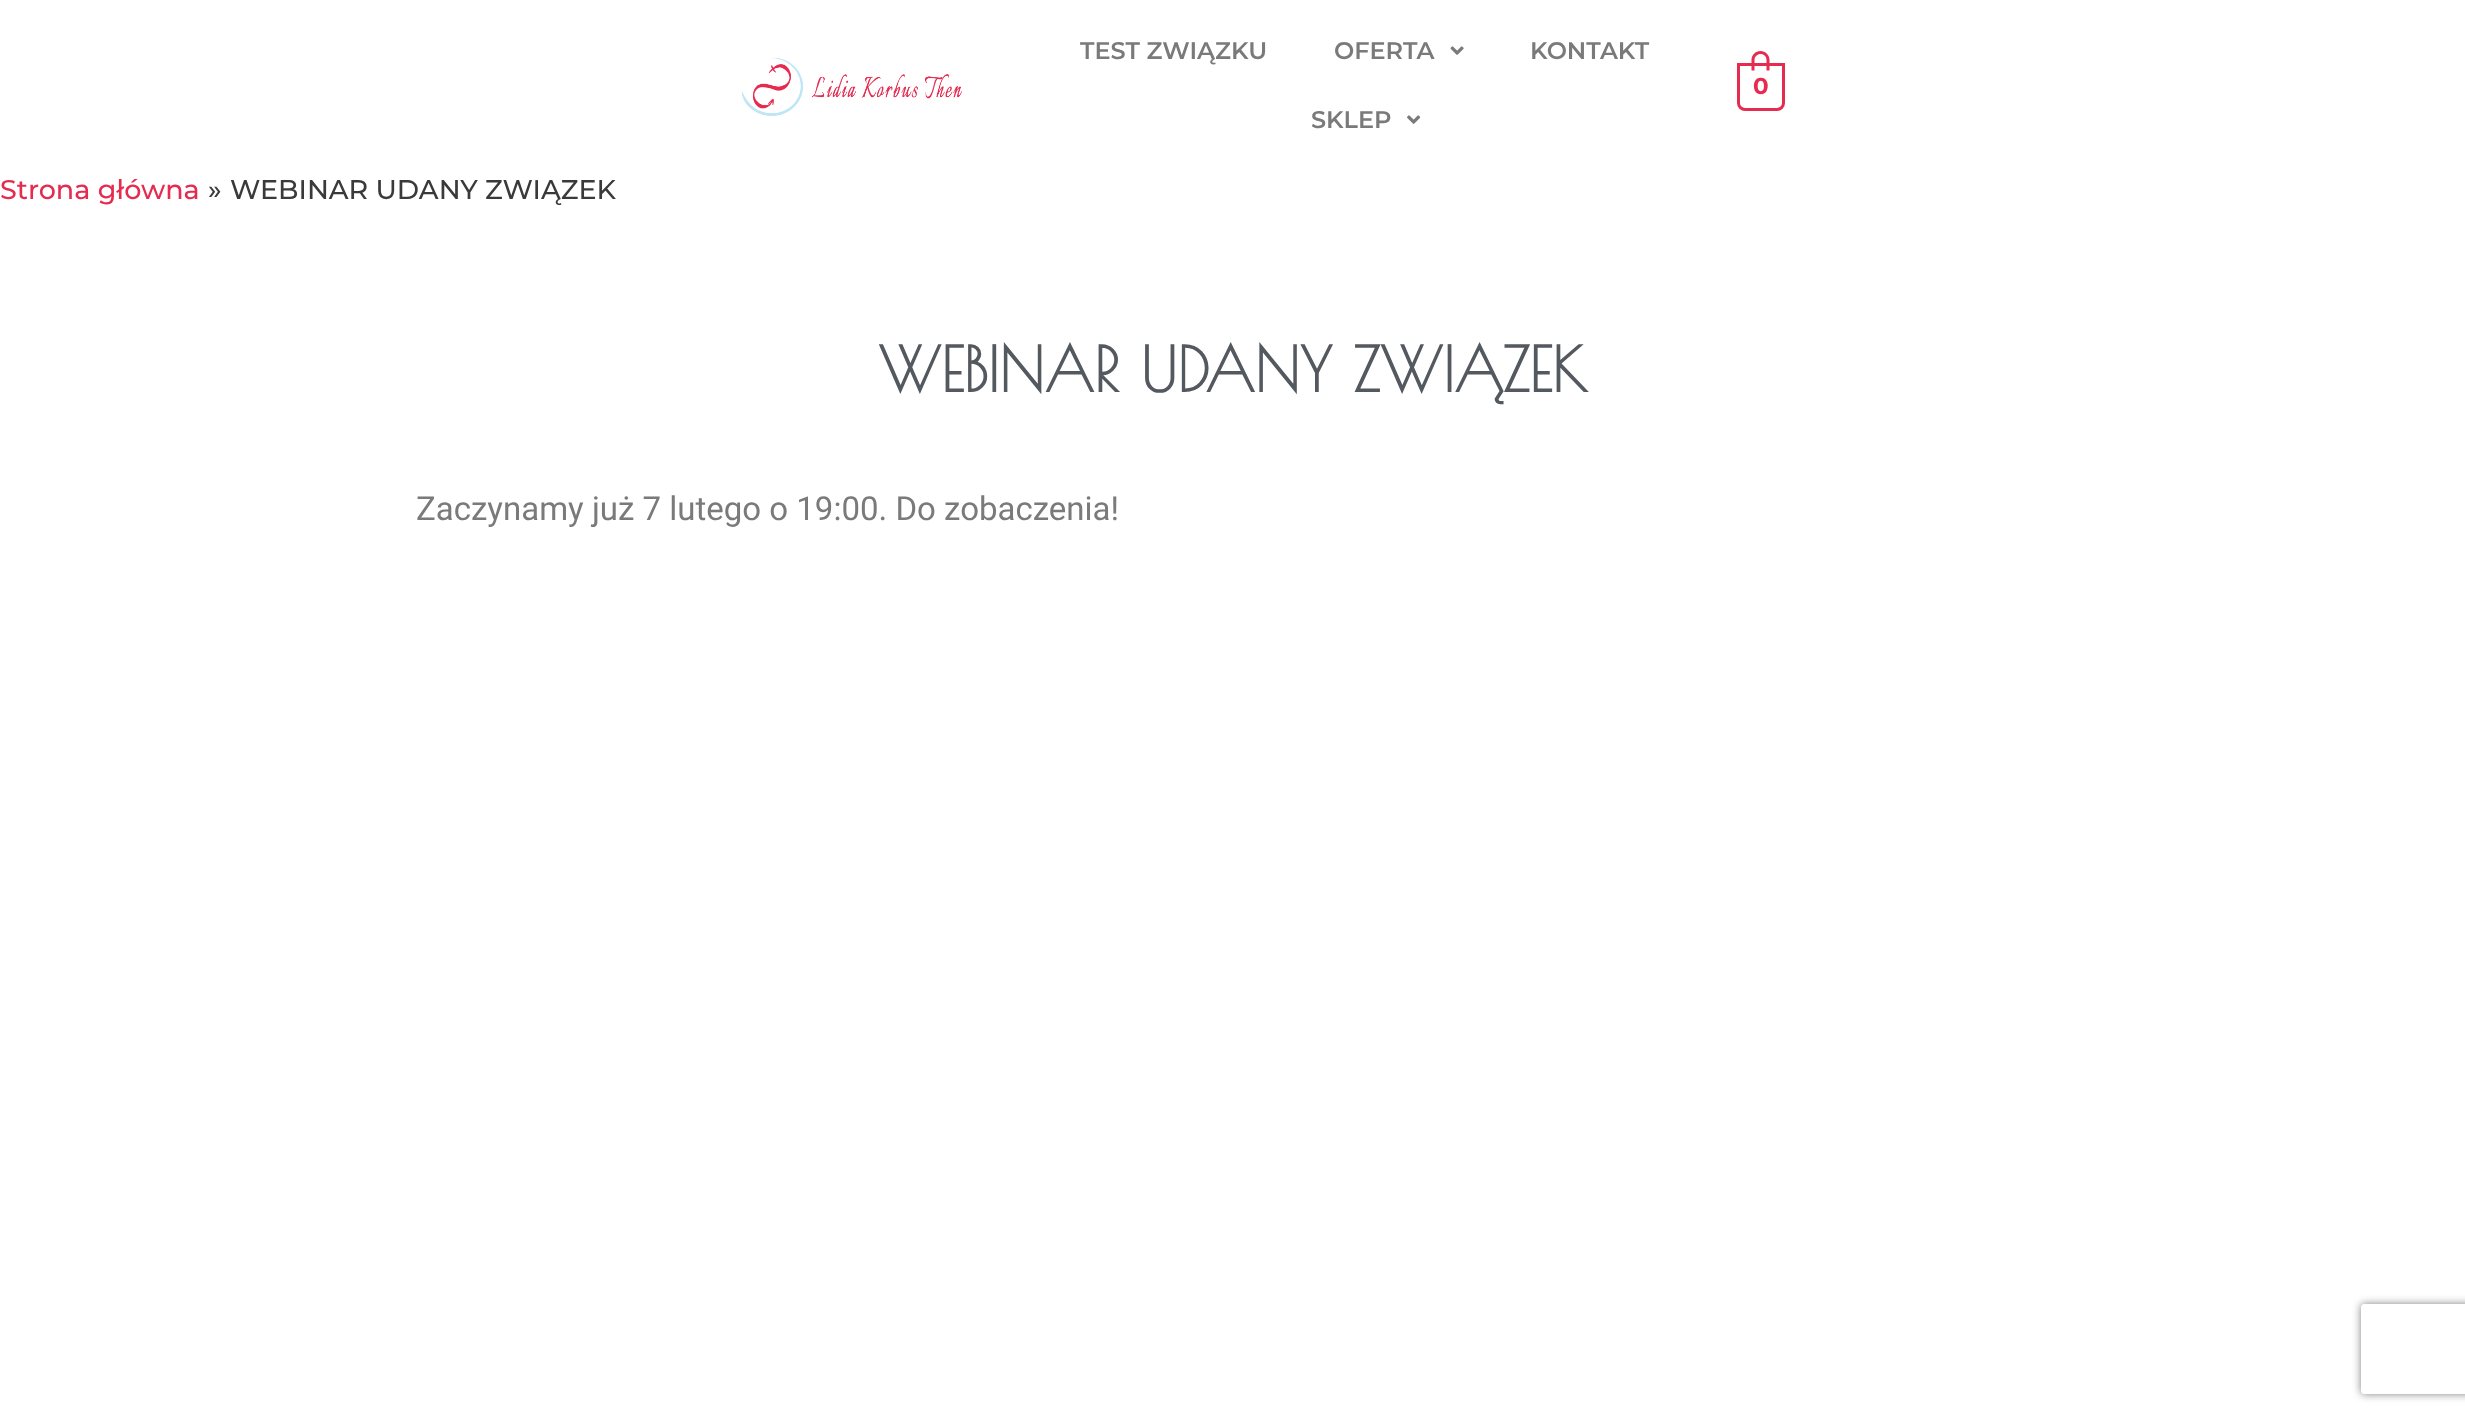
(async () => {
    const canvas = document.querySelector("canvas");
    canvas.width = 2465;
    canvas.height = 1414;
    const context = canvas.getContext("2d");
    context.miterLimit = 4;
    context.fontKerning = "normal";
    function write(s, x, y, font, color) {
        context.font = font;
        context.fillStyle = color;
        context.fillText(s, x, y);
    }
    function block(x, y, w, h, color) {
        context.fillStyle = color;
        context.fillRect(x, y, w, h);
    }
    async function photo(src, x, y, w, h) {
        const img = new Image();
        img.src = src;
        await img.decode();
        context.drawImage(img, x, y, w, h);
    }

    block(0, 0, 2465, 1414, "rgb(255, 255, 255)");
    await photo("media/1.png", 742, 57, 220, 59);
    write("TEST ZWIĄZKU", 1080, 59, "600 24px Montserrat", "rgb(122, 122, 122)");
    write("OFERTA", 1334, 59, "600 24px Montserrat", "rgb(122, 122, 122)");
    await photo("media/2.png", 1450, 46, 14, 9);
    write("KONTAKT", 1530, 59, "600 24px Montserrat", "rgb(122, 122, 122)");
    write("SKLEP", 1311, 128, "600 24px Montserrat", "rgb(122, 122, 122)");
    await photo("media/3.png", 1407, 115, 14, 9);
    context.beginPath();
    context.roundRect(1738.5, 64.5, 45, 45, [0, 0, 6.5, 6.5]);
    context.strokeStyle = "rgb(229, 43, 80)";
    context.lineWidth = 3;
    context.stroke();
    context.fillStyle = "rgb(229, 43, 80)";
    context.beginPath();
    context.moveTo(1760.5, 51);
    context.bezierCurveTo(1765.5, 51, 1769.5, 55, 1769.5, 60);
    context.lineTo(1769.5, 70.5);
    context.lineTo(1751.5, 70.5);
    context.lineTo(1751.5, 60);
    context.bezierCurveTo(1751.5, 55, 1755.5, 51, 1760.5, 51);
    context.closePath();
    context.moveTo(1760.5, 54);
    context.bezierCurveTo(1764, 54, 1766.5, 56.5, 1766.5, 60);
    context.lineTo(1766.5, 70.5);
    context.lineTo(1754.5, 70.5);
    context.lineTo(1754.5, 60);
    context.bezierCurveTo(1754.5, 56.5, 1757.5, 54, 1760.5, 54);
    context.closePath();
    context.fill("evenodd");
    write("0", 1753, 94, "bold 23px Montserrat", "rgb(229, 43, 80)");
    write("Strona główna", 0, 199, "500 27px Montserrat", "rgb(229, 43, 80)");
    write("»", 208, 199, "500 27px Montserrat", "rgb(58, 58, 58)");
    write("WEBINAR UDANY ZWIĄZEK", 230, 199, "500 27px Montserrat", "rgb(58, 58, 58)");
    write("WEBINAR UDANY ZWIĄZEK", 878, 392, "bold 61.5px Poiret One", "rgb(84, 89, 95)");
    write("Zaczynamy już 7 lutego o 19:00. Do zobaczenia!", 416, 520, "33px Roboto", "rgb(122, 122, 122)");
    context.save();
    context.beginPath();
    context.moveTo(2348, 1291);
    context.lineTo(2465, 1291);
    context.lineTo(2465, 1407);
    context.lineTo(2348, 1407);
    context.closePath();
    context.moveTo(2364, 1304);
    context.lineTo(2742, 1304);
    context.bezierCurveTo(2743.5, 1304, 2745, 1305.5, 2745, 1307);
    context.lineTo(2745, 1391);
    context.bezierCurveTo(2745, 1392.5, 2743.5, 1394, 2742, 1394);
    context.lineTo(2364, 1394);
    context.bezierCurveTo(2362.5, 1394, 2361, 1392.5, 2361, 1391);
    context.lineTo(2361, 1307);
    context.bezierCurveTo(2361, 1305.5, 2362.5, 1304, 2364, 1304);
    context.closePath();
    context.clip("evenodd");
    context.fillStyle = "rgb(128, 128, 128)";
    context.filter = "blur(4px)";
    context.beginPath();
    context.roundRect(2361, 1304, 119, 90, 3);
    context.fill();
    context.filter = "none";
    context.restore();
})();
